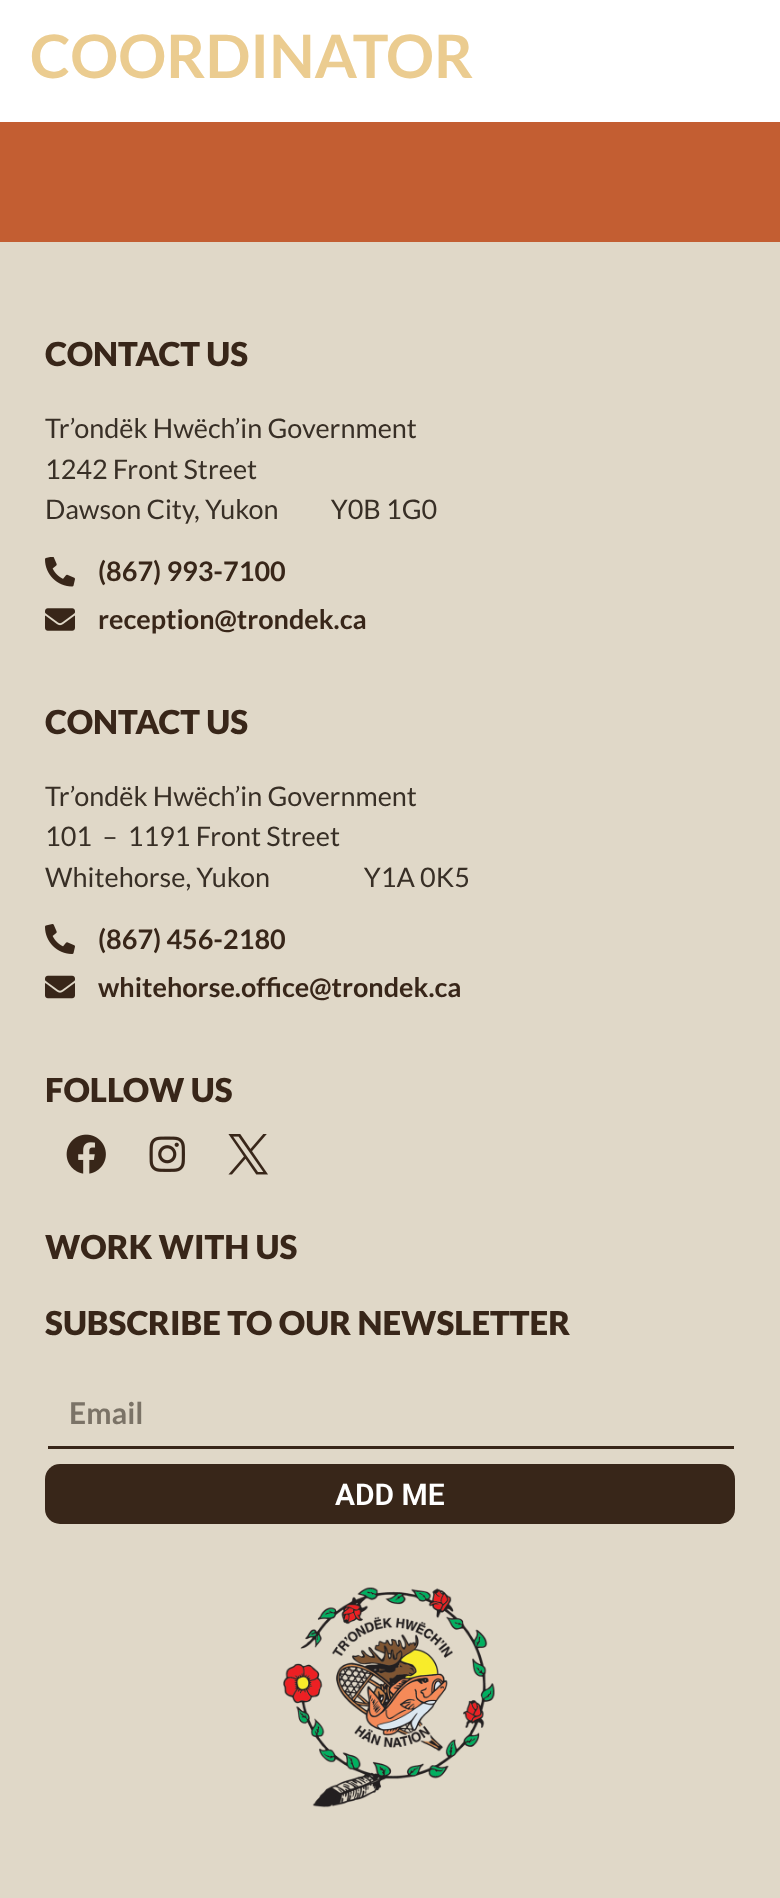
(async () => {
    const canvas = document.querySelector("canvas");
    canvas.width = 780;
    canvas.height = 1898;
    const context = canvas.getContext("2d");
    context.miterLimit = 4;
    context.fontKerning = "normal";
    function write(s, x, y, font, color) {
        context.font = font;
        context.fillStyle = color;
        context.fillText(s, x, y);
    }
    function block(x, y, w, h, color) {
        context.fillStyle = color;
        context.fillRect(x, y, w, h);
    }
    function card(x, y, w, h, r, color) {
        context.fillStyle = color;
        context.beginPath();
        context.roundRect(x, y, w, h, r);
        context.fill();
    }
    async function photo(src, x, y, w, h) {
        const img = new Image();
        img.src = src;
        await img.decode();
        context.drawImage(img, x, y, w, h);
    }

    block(0, 0, 780, 1898, "rgb(255, 255, 255)");
    write("COORDINATOR", 30, 78, "bold 60px Lato", "rgb(235, 204, 144)");
    block(0, 122, 780, 120, "rgb(195, 94, 50)");
    block(0, 242, 780, 1656, "rgb(224, 216, 200)");
    write("CONTACT US", 45, 366, "900 33px Lato", "rgb(56, 38, 25)");
    write("Tr’ondëk Hwëch’in Government", 45, 438, "27px Lato", "rgb(56, 47, 38)");
    write("1242 Front Street", 45, 479, "27px Lato", "rgb(56, 47, 38)");
    write("Dawson City, Yukon          Y0B 1G0", 45, 519, "27px Lato", "rgb(56, 47, 38)");
    await photo("media/1.png", 45, 557, 30, 30);
    write("(867) 993-7100", 98, 581, "bold 27px Lato", "rgb(56, 38, 25)");
    await photo("media/2.png", 45, 608, 30, 23);
    write("reception@trondek.ca", 98, 629, "bold 27px Lato", "rgb(56, 38, 25)");
    write("CONTACT US", 45, 734, "900 33px Lato", "rgb(56, 38, 25)");
    write("Tr’ondëk Hwëch’in Government", 45, 806, "27px Lato", "rgb(56, 47, 38)");
    write("101  –  1191 Front Street", 45, 846, "27px Lato", "rgb(56, 47, 38)");
    write("Whitehorse, Yukon                  Y1A 0K5", 45, 887, "27px Lato", "rgb(56, 47, 38)");
    await photo("media/3.png", 45, 924, 30, 30);
    write("(867) 456-2180", 98, 949, "bold 27px Lato", "rgb(56, 38, 25)");
    await photo("media/4.png", 45, 975, 30, 24);
    write("whitehorse.office@trondek.ca", 98, 997, "bold 27px Lato", "rgb(56, 38, 25)");
    write("FOLLOW US", 45, 1102, "900 33px Lato", "rgb(56, 38, 25)");
    await photo("media/5.png", 66, 1134, 40, 40);
    await photo("media/6.png", 149, 1136, 36, 36);
    await photo("media/7.png", 228, 1134, 40, 41);
    write("WORK WITH US", 45, 1259, "900 33px Lato", "rgb(56, 38, 25)");
    write("SUBSCRIBE TO OUR NEWSLETTER", 45, 1335, "900 33px Lato", "rgb(56, 38, 25)");
    block(48, 1446, 686, 3, "rgb(56, 38, 25)");
    write("Email", 69, 1424, "bold 30px Lato", "rgb(123, 115, 103)");
    card(45, 1464, 690, 60, 15, "rgb(56, 38, 25)");
    write("ADD ME", 335, 1505, "600 30px Roboto", "rgb(255, 255, 255)");
    await photo("media/8.png", 283, 1587, 212, 221);
})();
